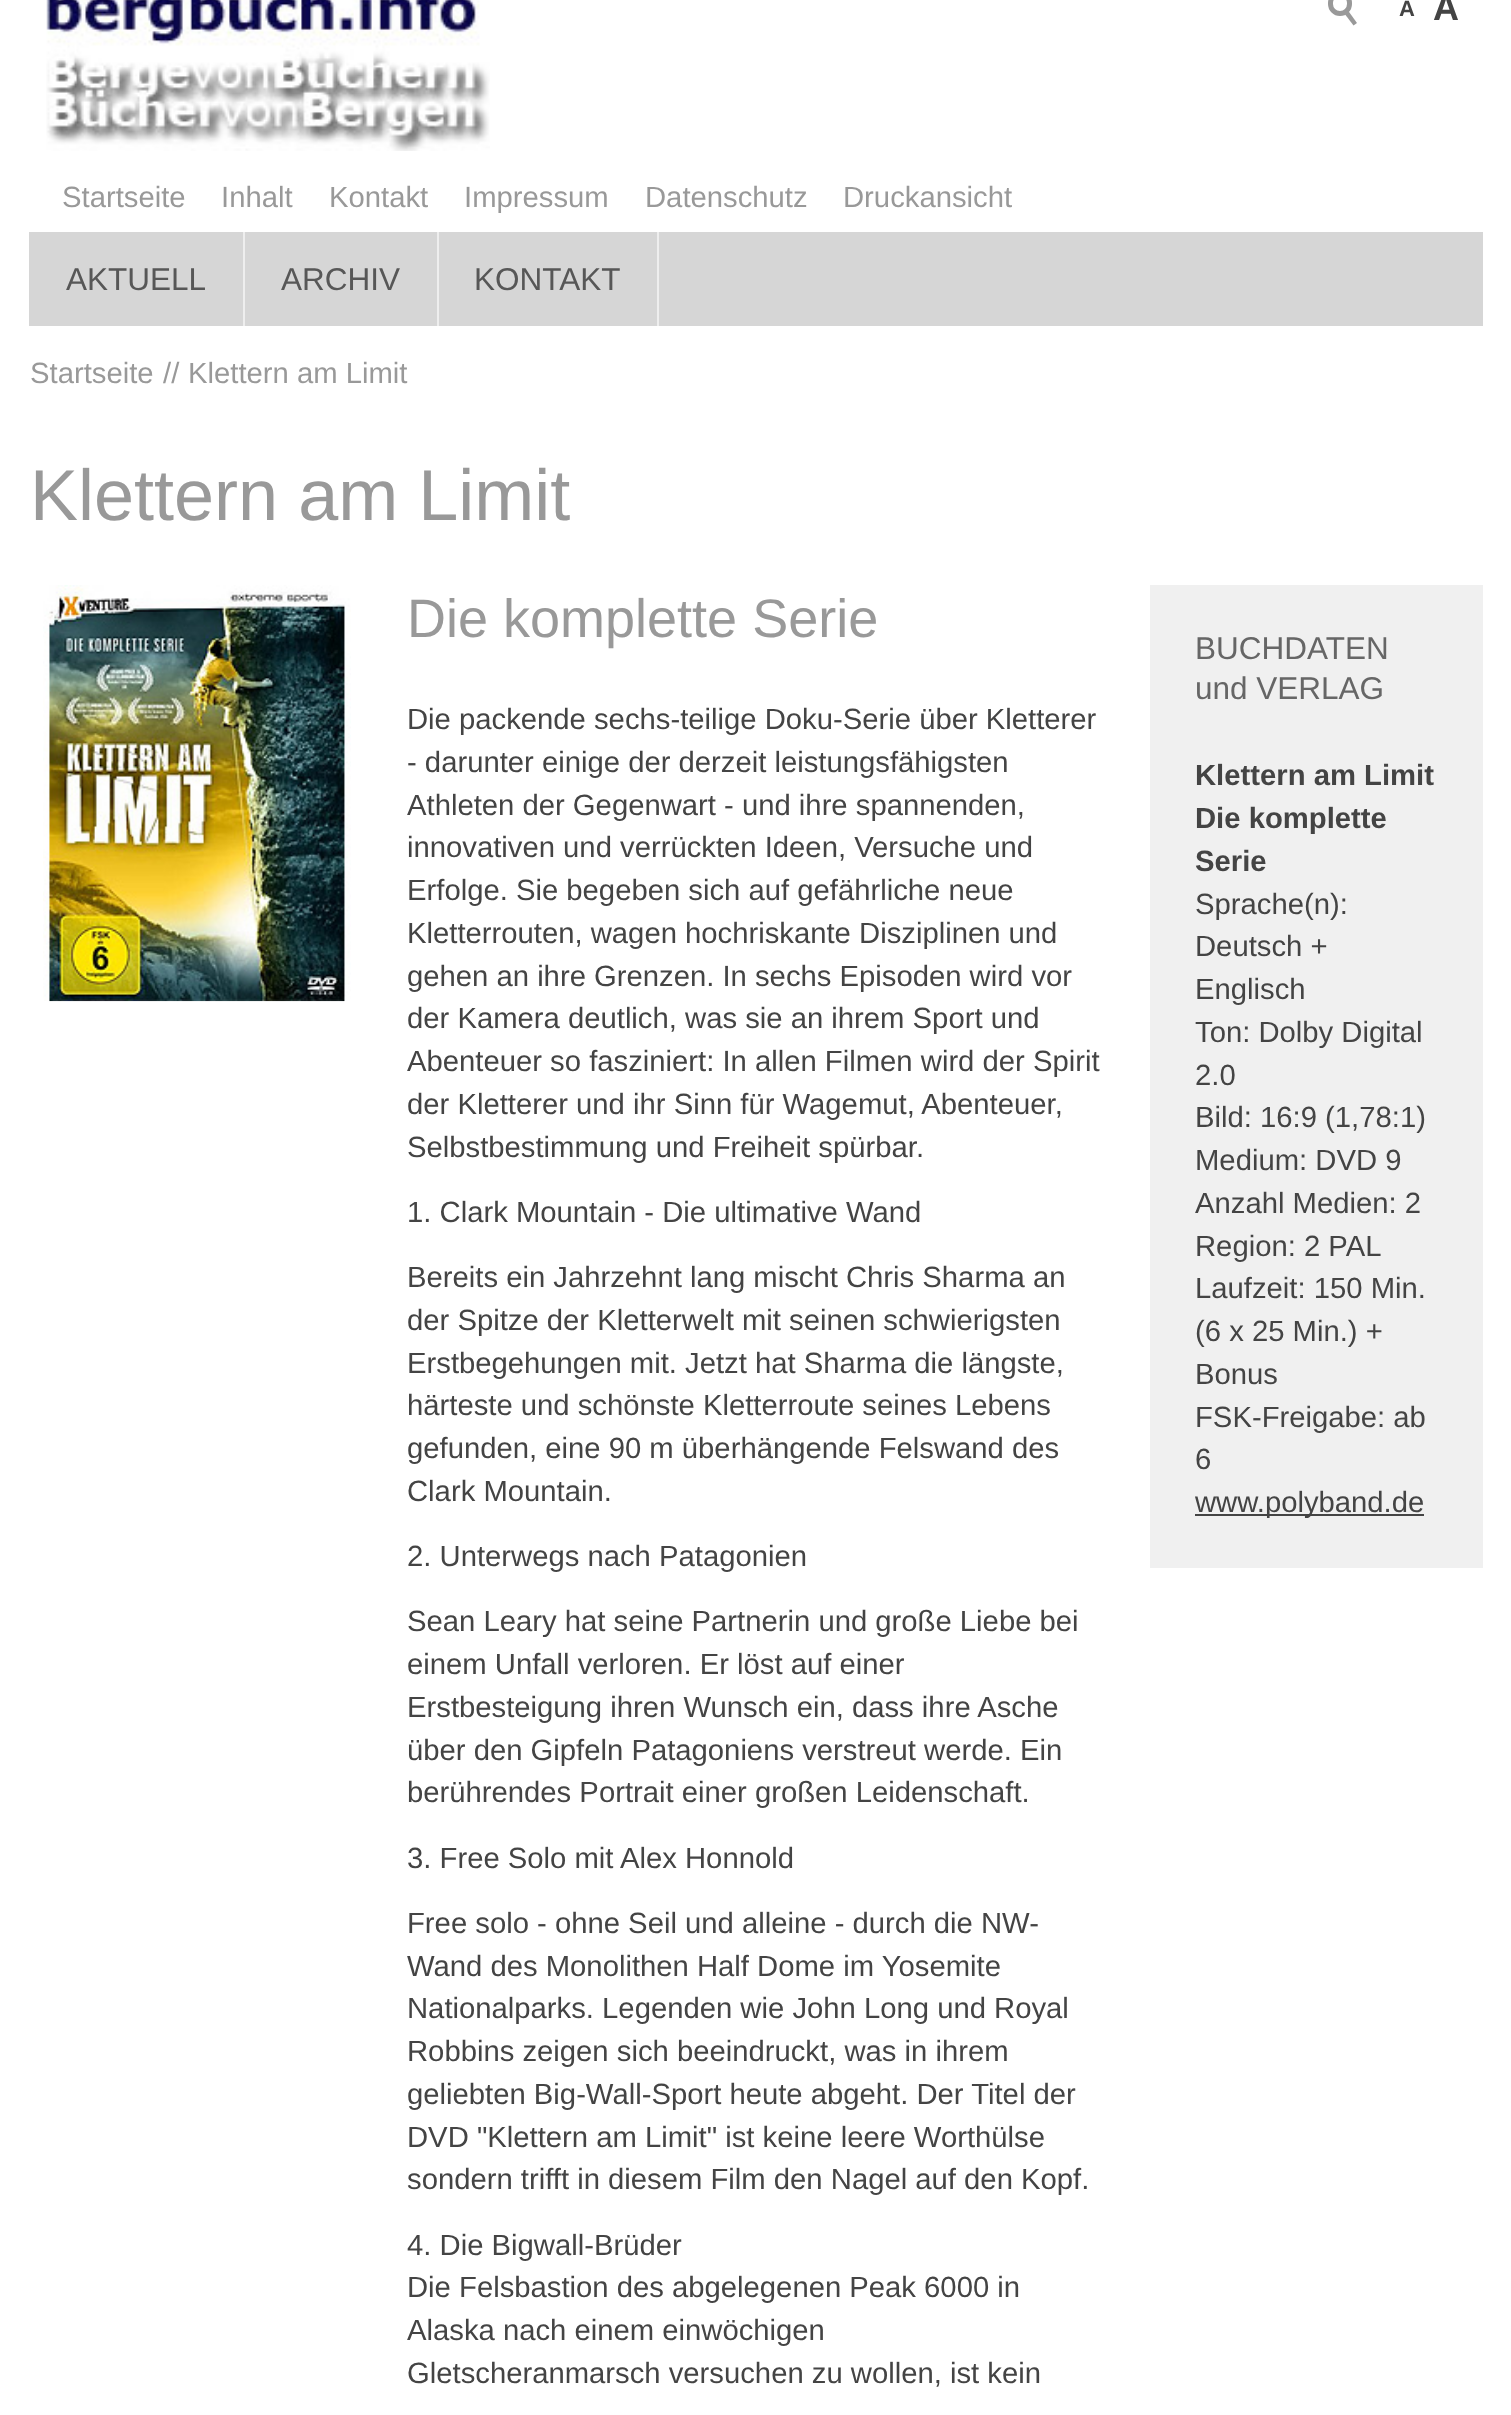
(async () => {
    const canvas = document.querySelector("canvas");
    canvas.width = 1511;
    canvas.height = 2415;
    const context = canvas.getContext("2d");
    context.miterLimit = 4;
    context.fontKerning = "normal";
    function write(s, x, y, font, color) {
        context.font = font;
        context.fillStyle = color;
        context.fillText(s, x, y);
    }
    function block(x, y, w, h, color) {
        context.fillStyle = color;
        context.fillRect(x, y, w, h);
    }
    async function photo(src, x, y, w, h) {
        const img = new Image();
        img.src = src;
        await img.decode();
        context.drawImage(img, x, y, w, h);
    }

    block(0, 0, 1511, 2415, "rgb(255, 255, 255)");
    await photo("media/1.png", 46, 0, 444, 151);
    context.beginPath();
    context.roundRect(1330.5, -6.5, 19, 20, 9.5);
    context.strokeStyle = "rgb(153, 153, 153)";
    context.lineWidth = 5;
    context.stroke();
    context.fillStyle = "rgb(153, 153, 153)";
    context.beginPath();
    context.moveTo(1348, 10.5);
    context.lineTo(1357, 23);
    context.lineTo(1353.5, 25.5);
    context.lineTo(1344, 13);
    context.closePath();
    context.fill();
    write("A", 1399, 16, "bold 22px Liberation Sans", "rgb(68, 68, 68)");
    write("A", 1433, 20, "bold 36px Liberation Sans", "rgb(68, 68, 68)");
    write("Startseite", 62, 207, "29.25px Liberation Sans", "rgb(153, 153, 153)");
    write("Inhalt", 221, 207, "29.25px Liberation Sans", "rgb(153, 153, 153)");
    write("Kontakt", 329, 207, "29.25px Liberation Sans", "rgb(153, 153, 153)");
    write("Impressum", 464, 207, "29.25px Liberation Sans", "rgb(153, 153, 153)");
    write("Datenschutz", 645, 207, "29.25px Liberation Sans", "rgb(153, 153, 153)");
    write("Druckansicht", 843, 207, "29.25px Liberation Sans", "rgb(153, 153, 153)");
    block(29, 232, 1454, 94, "rgb(214, 214, 214)");
    block(243, 232, 2, 94, "rgb(238, 238, 238)");
    write("AKTUELL", 66, 290, "31.5px Liberation Sans", "rgb(87, 87, 87)");
    block(437, 232, 2, 94, "rgb(238, 238, 238)");
    write("ARCHIV", 281, 290, "31.5px Liberation Sans", "rgb(87, 87, 87)");
    block(657, 232, 2, 94, "rgb(238, 238, 238)");
    write("KONTAKT", 474, 290, "31.5px Liberation Sans", "rgb(87, 87, 87)");
    write("Startseite", 30, 383, "29.25px Liberation Sans", "rgb(153, 153, 153)");
    write("//", 163, 383, "29.25px Liberation Sans", "rgb(153, 153, 153)");
    write("Klettern am Limit", 188, 383, "29.25px Liberation Sans", "rgb(153, 153, 153)");
    write("Klettern am Limit", 30, 520, "72px Liberation Sans", "rgb(153, 153, 153)");
    await photo("media/2.png", 43, 585, 308, 417);
    write("Die komplette Serie", 407, 637, "54px Liberation Sans", "rgb(153, 153, 153)");
    write("Die packende sechs-teilige Doku-Serie über Kletterer", 407, 729, "29.25px Liberation Sans", "rgb(68, 68, 68)");
    write("- darunter einige der derzeit leistungsfähigsten", 407, 772, "29.25px Liberation Sans", "rgb(68, 68, 68)");
    write("Athleten der Gegenwart - und ihre spannenden,", 407, 815, "29.25px Liberation Sans", "rgb(68, 68, 68)");
    write("innovativen und verrückten Ideen, Versuche und", 407, 857, "29.25px Liberation Sans", "rgb(68, 68, 68)");
    write("Erfolge. Sie begeben sich auf gefährliche neue", 407, 900, "29.25px Liberation Sans", "rgb(68, 68, 68)");
    write("Kletterrouten, wagen hochriskante Disziplinen und", 407, 943, "29.25px Liberation Sans", "rgb(68, 68, 68)");
    write("gehen an ihre Grenzen. In sechs Episoden wird vor", 407, 986, "29.25px Liberation Sans", "rgb(68, 68, 68)");
    write("der Kamera deutlich, was sie an ihrem Sport und", 407, 1028, "29.25px Liberation Sans", "rgb(68, 68, 68)");
    write("Abenteuer so fasziniert: In allen Filmen wird der Spirit", 407, 1071, "29.25px Liberation Sans", "rgb(68, 68, 68)");
    write("der Kletterer und ihr Sinn für Wagemut, Abenteuer,", 407, 1114, "29.25px Liberation Sans", "rgb(68, 68, 68)");
    write("Selbstbestimmung und Freiheit spürbar.", 407, 1157, "29.25px Liberation Sans", "rgb(68, 68, 68)");
    write("1. Clark Mountain - Die ultimative Wand", 407, 1222, "29.25px Liberation Sans", "rgb(68, 68, 68)");
    write("Bereits ein Jahrzehnt lang mischt Chris Sharma an", 407, 1287, "29.25px Liberation Sans", "rgb(68, 68, 68)");
    write("der Spitze der Kletterwelt mit seinen schwierigsten", 407, 1330, "29.25px Liberation Sans", "rgb(68, 68, 68)");
    write("Erstbegehungen mit. Jetzt hat Sharma die längste,", 407, 1373, "29.25px Liberation Sans", "rgb(68, 68, 68)");
    write("härteste und schönste Kletterroute seines Lebens", 407, 1415, "29.25px Liberation Sans", "rgb(68, 68, 68)");
    write("gefunden, eine 90 m überhängende Felswand des", 407, 1458, "29.25px Liberation Sans", "rgb(68, 68, 68)");
    write("Clark Mountain.", 407, 1501, "29.25px Liberation Sans", "rgb(68, 68, 68)");
    write("2. Unterwegs nach Patagonien", 407, 1566, "29.25px Liberation Sans", "rgb(68, 68, 68)");
    write("Sean Leary hat seine Partnerin und große Liebe bei", 407, 1631, "29.25px Liberation Sans", "rgb(68, 68, 68)");
    write("einem Unfall verloren. Er löst auf einer", 407, 1674, "29.25px Liberation Sans", "rgb(68, 68, 68)");
    write("Erstbesteigung ihren Wunsch ein, dass ihre Asche", 407, 1717, "29.25px Liberation Sans", "rgb(68, 68, 68)");
    write("über den Gipfeln Patagoniens verstreut werde. Ein", 407, 1760, "29.25px Liberation Sans", "rgb(68, 68, 68)");
    write("berührendes Portrait einer großen Leidenschaft.", 407, 1802, "29.25px Liberation Sans", "rgb(68, 68, 68)");
    write("3. Free Solo mit Alex Honnold", 407, 1868, "29.25px Liberation Sans", "rgb(68, 68, 68)");
    write("Free solo - ohne Seil und alleine - durch die NW-", 407, 1933, "29.25px Liberation Sans", "rgb(68, 68, 68)");
    write("Wand des Monolithen Half Dome im Yosemite", 407, 1976, "29.25px Liberation Sans", "rgb(68, 68, 68)");
    write("Nationalparks. Legenden wie John Long und Royal", 407, 2018, "29.25px Liberation Sans", "rgb(68, 68, 68)");
    write("Robbins zeigen sich beeindruckt, was in ihrem", 407, 2061, "29.25px Liberation Sans", "rgb(68, 68, 68)");
    write("geliebten Big-Wall-Sport heute abgeht. Der Titel der", 407, 2104, "29.25px Liberation Sans", "rgb(68, 68, 68)");
    write("DVD \"Klettern am Limit\" ist keine leere Worthülse", 407, 2147, "29.25px Liberation Sans", "rgb(68, 68, 68)");
    write("sondern trifft in diesem Film den Nagel auf den Kopf.", 407, 2189, "29.25px Liberation Sans", "rgb(68, 68, 68)");
    write("4. Die Bigwall-Brüder", 407, 2255, "29.25px Liberation Sans", "rgb(68, 68, 68)");
    write("Die Felsbastion des abgelegenen Peak 6000 in", 407, 2297, "29.25px Liberation Sans", "rgb(68, 68, 68)");
    write("Alaska nach einem einwöchigen", 407, 2340, "29.25px Liberation Sans", "rgb(68, 68, 68)");
    write("Gletscheranmarsch versuchen zu wollen, ist kein", 407, 2383, "29.25px Liberation Sans", "rgb(68, 68, 68)");
    block(1150, 585, 333, 983, "rgb(240, 240, 240)");
    write("BUCHDATEN", 1195, 659, "31.5px Liberation Sans", "rgb(102, 102, 102)");
    write("und VERLAG", 1195, 699, "31.5px Liberation Sans", "rgb(102, 102, 102)");
    write("Klettern am Limit", 1195, 785, "bold 29.25px Liberation Sans", "rgb(68, 68, 68)");
    write("Die komplette", 1195, 828, "bold 29.25px Liberation Sans", "rgb(68, 68, 68)");
    write("Serie", 1195, 871, "bold 29.25px Liberation Sans", "rgb(68, 68, 68)");
    write("Sprache(n):", 1195, 914, "29.25px Liberation Sans", "rgb(68, 68, 68)");
    write("Deutsch +", 1195, 956, "29.25px Liberation Sans", "rgb(68, 68, 68)");
    write("Englisch", 1195, 999, "29.25px Liberation Sans", "rgb(68, 68, 68)");
    write("Ton: Dolby Digital", 1195, 1042, "29.25px Liberation Sans", "rgb(68, 68, 68)");
    write("2.0", 1195, 1085, "29.25px Liberation Sans", "rgb(68, 68, 68)");
    write("Bild: 16:9 (1,78:1)", 1195, 1127, "29.25px Liberation Sans", "rgb(68, 68, 68)");
    write("Medium: DVD 9", 1195, 1170, "29.25px Liberation Sans", "rgb(68, 68, 68)");
    write("Anzahl Medien: 2", 1195, 1213, "29.25px Liberation Sans", "rgb(68, 68, 68)");
    write("Region: 2 PAL", 1195, 1256, "29.25px Liberation Sans", "rgb(68, 68, 68)");
    write("Laufzeit: 150 Min.", 1195, 1298, "29.25px Liberation Sans", "rgb(68, 68, 68)");
    write("(6 x 25 Min.) +", 1195, 1341, "29.25px Liberation Sans", "rgb(68, 68, 68)");
    write("Bonus", 1195, 1384, "29.25px Liberation Sans", "rgb(68, 68, 68)");
    write("FSK-Freigabe: ab", 1195, 1427, "29.25px Liberation Sans", "rgb(68, 68, 68)");
    write("6", 1195, 1469, "29.25px Liberation Sans", "rgb(68, 68, 68)");
    block(1195, 1514, 229, 2, "rgb(68, 68, 68)");
    write("www.polyband.de", 1195, 1512, "29.25px Liberation Sans", "rgb(68, 68, 68)");
})();
